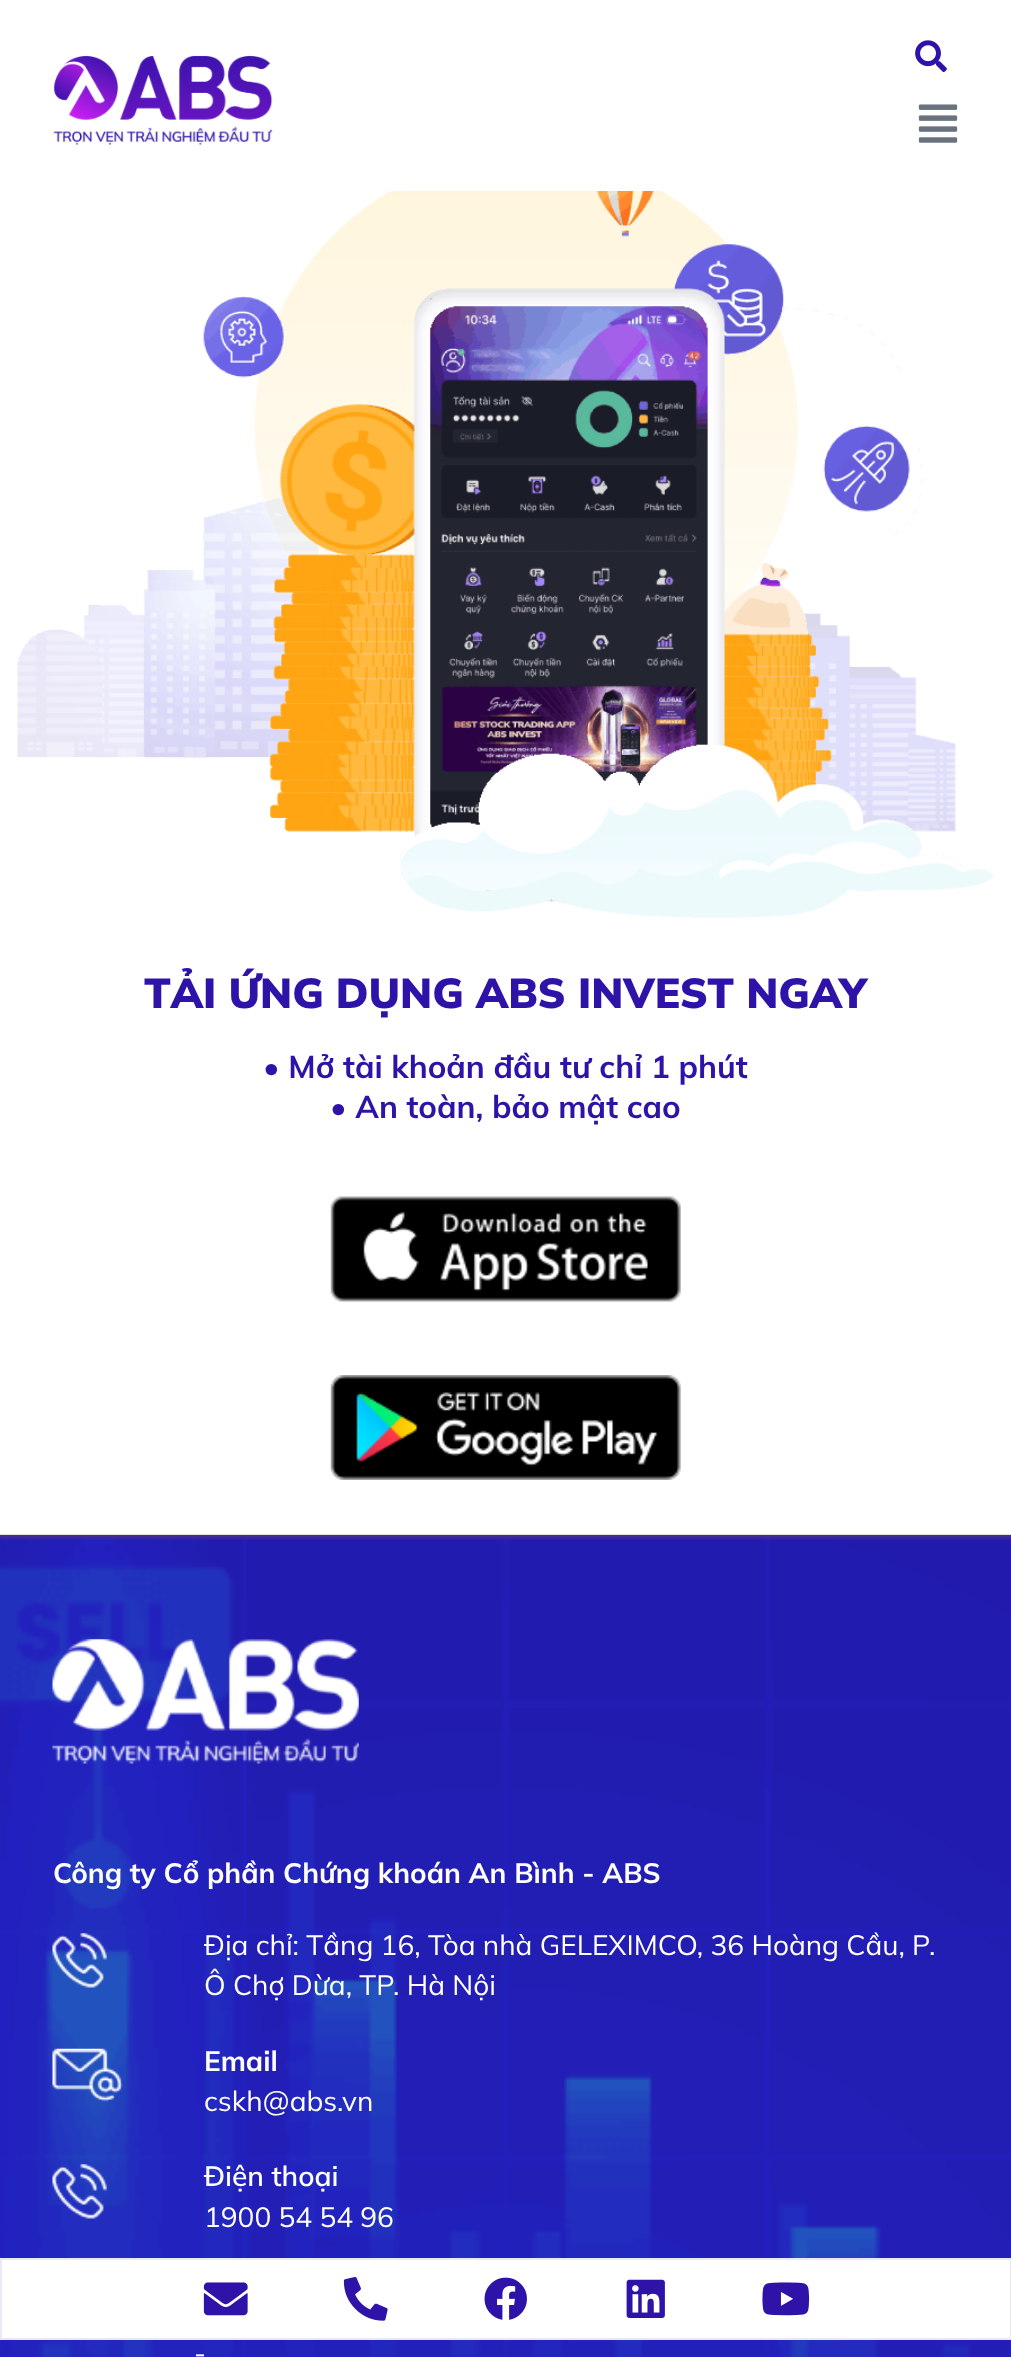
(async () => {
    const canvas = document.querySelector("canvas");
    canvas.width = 1011;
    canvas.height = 2357;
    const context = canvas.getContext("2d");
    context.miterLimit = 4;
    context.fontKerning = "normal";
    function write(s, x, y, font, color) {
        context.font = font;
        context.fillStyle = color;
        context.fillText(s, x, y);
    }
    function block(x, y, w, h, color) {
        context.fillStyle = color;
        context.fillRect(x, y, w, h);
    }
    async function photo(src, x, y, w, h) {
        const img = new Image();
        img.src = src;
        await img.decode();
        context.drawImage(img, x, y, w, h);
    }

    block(0, 0, 1011, 2357, "rgb(255, 255, 255)");
    await photo("media/1.png", 53, 55, 220, 90);
    await photo("media/2.png", 915, 40, 32, 33);
    await photo("media/3.png", 918, 104, 40, 39);
    await photo("media/4.png", 17, 191, 976, 727);
    write("TẢI ỨNG DỤNG ABS INVEST NGAY", 144, 1008, "900 42px Mulish", "rgb(47, 18, 167)");
    write("• Mở tài khoản đầu tư chỉ 1 phút", 263, 1078, "bold 31.5px Mulish", "rgb(47, 18, 167)");
    write("• An toàn, bảo mật cao", 330, 1118, "bold 31.5px Mulish", "rgb(47, 18, 167)");
    await photo("media/5.png", 330, 1196, 351, 106);
    await photo("media/6.png", 330, 1375, 351, 105);
    block(0, 1535, 1011, 822, "rgb(47, 18, 167)");
    await photo("media/7.png", 0, 1534, 1011, 823);
    await photo("media/8.png", 52, 1639, 307, 125);
    write("Công ty Cổ phần Chứng khoán An Bình - ABS", 53, 1883, "bold 28px Mulish", "rgb(255, 255, 255)");
    await photo("media/9.png", 52, 1933, 55, 55);
    write("Địa chỉ: Tầng 16, Tòa nhà GELEXIMCO, 36 Hoàng Cầu, P.", 204, 1955, "28px Mulish", "rgb(255, 255, 255)");
    write("Ô Chợ Dừa, TP. Hà Nội", 204, 1995, "28px Mulish", "rgb(255, 255, 255)");
    await photo("media/10.png", 52, 2048, 71, 54);
    write("Email", 204, 2071, "bold 28px Mulish", "rgb(255, 255, 255)");
    write("cskh@abs.vn", 204, 2111, "28px Mulish", "rgb(255, 255, 255)");
    await photo("media/11.png", 52, 2164, 55, 55);
    write("Điện thoại", 204, 2186, "600 28px Mulish", "rgb(255, 255, 255)");
    write("1900 54 54 96", 204, 2227, "28px Mulish", "rgb(255, 255, 255)");
    context.fillStyle = "rgba(58, 18, 172, 0.05)";
    context.filter = "blur(9px)";
    context.beginPath();
    context.rect(0, 2284, 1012, 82);
    context.fill();
    context.filter = "none";
    context.fillStyle = "rgb(255, 255, 255)";
    context.beginPath();
    context.rect(1, 2259, 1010, 80);
    context.fill();
    context.strokeStyle = "rgb(234, 231, 246)";
    context.lineWidth = 2;
    context.stroke();
    await photo("media/12.png", 203, 2282, 45, 34);
    await photo("media/13.png", 343, 2277, 45, 44);
    await photo("media/14.png", 484, 2277, 43, 43);
    await photo("media/15.png", 626, 2279, 39, 39);
    await photo("media/16.png", 762, 2282, 48, 34);
    write("-", 194, 2363, "28px Mulish", "rgb(255, 255, 255)");
})();
